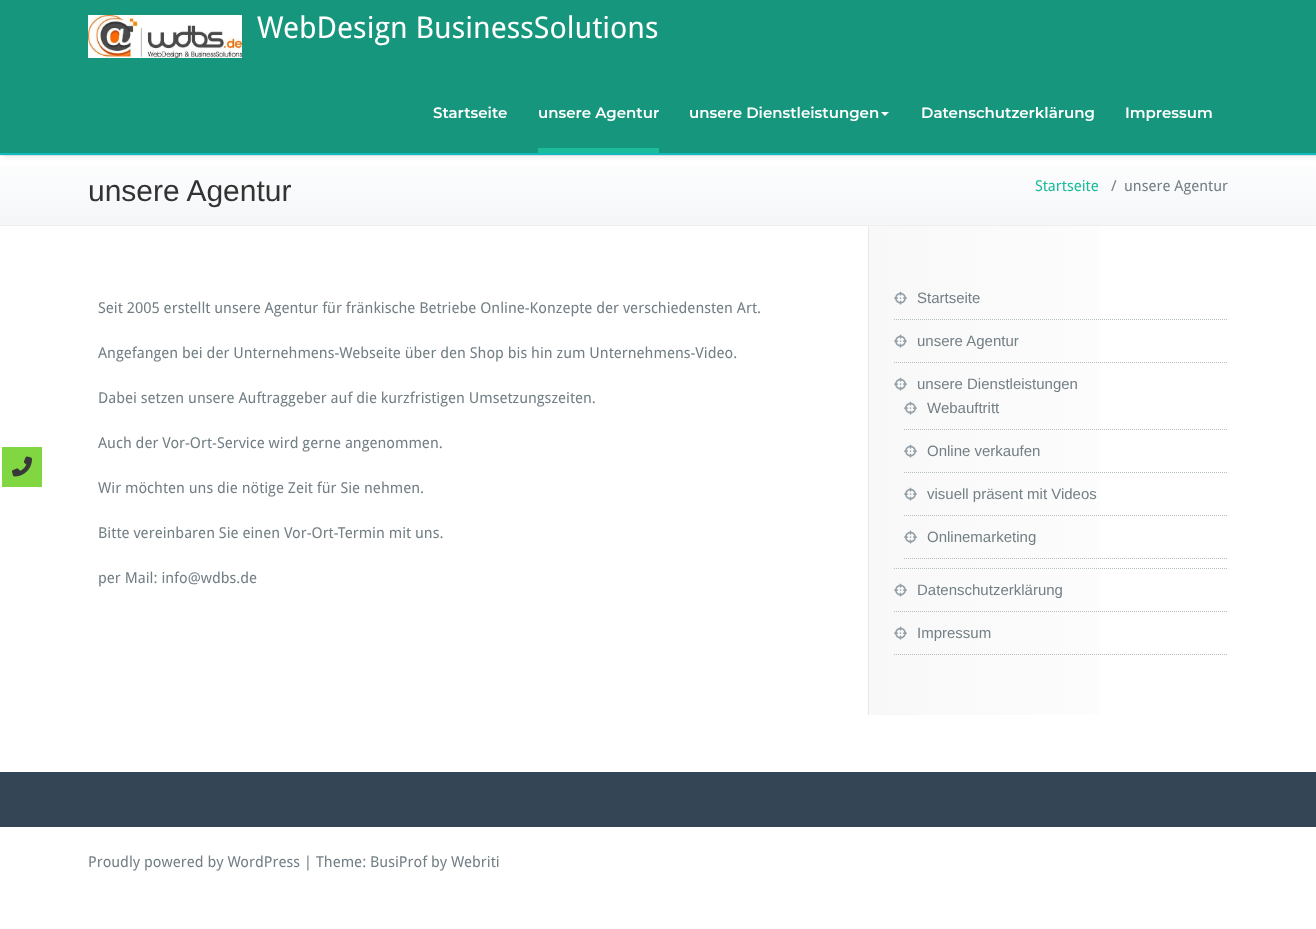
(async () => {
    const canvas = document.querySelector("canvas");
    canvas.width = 1316;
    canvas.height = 929;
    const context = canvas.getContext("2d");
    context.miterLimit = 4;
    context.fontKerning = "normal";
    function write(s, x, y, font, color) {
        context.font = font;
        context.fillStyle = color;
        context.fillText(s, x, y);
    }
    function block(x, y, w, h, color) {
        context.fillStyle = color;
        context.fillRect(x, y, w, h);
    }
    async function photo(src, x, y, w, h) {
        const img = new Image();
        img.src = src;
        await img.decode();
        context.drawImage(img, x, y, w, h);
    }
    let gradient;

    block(0, 0, 1316, 929, "rgb(255, 255, 255)");
    block(2, 447, 40, 40, "rgb(129, 215, 66)");
    await photo("media/1.png", 12, 456, 20, 21);
    block(0, 155, 1316, 1, "rgb(228, 232, 234)");
    context.fillStyle = "rgba(0, 0, 0, 0.04)";
    context.filter = "blur(1.5px)";
    context.beginPath();
    context.rect(4, 4, 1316, 155);
    context.fill();
    context.filter = "none";
    block(0, 153, 1316, 2, "rgb(17, 187, 187)");
    block(0, 0, 1316, 153, "rgb(22, 150, 124)");
    await photo("media/2.png", 88, 15, 154, 43);
    write("WebDesign BusinessSolutions", 257, 38, "30px Droid Sans", "rgb(255, 255, 255)");
    write("Startseite", 433, 118, "600 15px Montserrat", "rgb(255, 255, 255)");
    write("unsere Agentur", 538, 118, "600 15px Montserrat", "rgb(255, 255, 255)");
    block(538, 148, 121, 5, "rgb(27, 188, 155)");
    write("unsere Dienstleistungen", 689, 118, "600 15px Montserrat", "rgb(255, 255, 255)");
    context.beginPath();
    context.moveTo(881, 112);
    context.lineTo(889, 112);
    context.lineTo(885, 116);
    context.closePath();
    context.fill();
    write("Datenschutzerklärung", 921, 118, "600 15px Montserrat", "rgb(255, 255, 255)");
    write("Impressum", 1125, 118, "600 15px Montserrat", "rgb(255, 255, 255)");
    gradient = context.createLinearGradient(658, 156, 658, 225);
    gradient.addColorStop(0, "rgb(254, 254, 255)");
    gradient.addColorStop(1, "rgb(244, 246, 247)");
    context.fillStyle = gradient;
    context.fillRect(0, 166, 1316, 59);
    block(0, 225, 1316, 1, "rgb(238, 238, 238)");
    write("unsere Agentur", 88, 201, "30px Liberation Sans", "rgb(51, 51, 51)");
    write("Startseite", 1035, 191, "15px Droid Sans", "rgb(27, 188, 155)");
    write("/", 1111, 191, "15px Droid Sans", "rgb(115, 127, 133)");
    write("unsere Agentur", 1124, 191, "15px Droid Sans", "rgb(115, 127, 133)");
    write("Seit 2005 erstellt unsere Agentur für fränkische Betriebe Online-Konzepte der verschiedensten Art.", 98, 313, "15px Droid Sans", "rgb(115, 127, 133)");
    write("Angefangen bei der Unternehmens-Webseite über den Shop bis hin zum Unternehmens-Video.", 98, 358, "15px Droid Sans", "rgb(115, 127, 133)");
    write("Dabei setzen unsere Auftraggeber auf die kurzfristigen Umsetzungszeiten.", 98, 403, "15px Droid Sans", "rgb(115, 127, 133)");
    write("Auch der Vor-Ort-Service wird gerne angenommen.", 98, 448, "15px Droid Sans", "rgb(115, 127, 133)");
    write("Wir möchten uns die nötige Zeit für Sie nehmen.", 98, 493, "15px Droid Sans", "rgb(115, 127, 133)");
    write("Bitte vereinbaren Sie einen Vor-Ort-Termin mit uns.", 98, 538, "15px Droid Sans", "rgb(115, 127, 133)");
    write("per Mail: info@wdbs.de", 98, 583, "15px Droid Sans", "rgb(115, 127, 133)");
    gradient = context.createLinearGradient(869, 471, 1228, 471);
    gradient.addColorStop(0, "rgb(248, 248, 248)");
    gradient.addColorStop(1, "rgb(255, 255, 255)");
    context.fillStyle = gradient;
    context.fillRect(869, 226, 231, 489);
    block(868, 226, 1, 489, "rgb(228, 232, 234)");
    context.beginPath();
    context.moveTo(894, 319.5);
    context.lineTo(1228, 319.5);
    context.strokeStyle = "rgb(180, 191, 197)";
    context.setLineDash([1, 1]);
    context.stroke();
    await photo("media/3.png", 894, 291, 13, 14);
    write("Startseite", 917, 303, "15px Liberation Sans", "rgb(115, 127, 133)");
    context.beginPath();
    context.moveTo(894, 362.5);
    context.lineTo(1228, 362.5);
    context.stroke();
    await photo("media/3.png", 894, 334, 13, 14);
    write("unsere Agentur", 917, 346, "15px Liberation Sans", "rgb(115, 127, 133)");
    context.beginPath();
    context.moveTo(894, 568.5);
    context.lineTo(1228, 568.5);
    context.stroke();
    await photo("media/3.png", 894, 377, 13, 14);
    write("unsere Dienstleistungen", 917, 389, "15px Liberation Sans", "rgb(115, 127, 133)");
    context.beginPath();
    context.moveTo(904, 429.5);
    context.lineTo(1228, 429.5);
    context.stroke();
    await photo("media/4.png", 904, 401, 13, 14);
    write("Webauftritt", 927, 413, "15px Liberation Sans", "rgb(115, 127, 133)");
    context.beginPath();
    context.moveTo(904, 472.5);
    context.lineTo(1228, 472.5);
    context.stroke();
    await photo("media/4.png", 904, 444, 13, 14);
    write("Online verkaufen", 927, 456, "15px Liberation Sans", "rgb(115, 127, 133)");
    context.beginPath();
    context.moveTo(904, 515.5);
    context.lineTo(1228, 515.5);
    context.stroke();
    await photo("media/4.png", 904, 487, 13, 14);
    write("visuell präsent mit Videos", 927, 499, "15px Liberation Sans", "rgb(115, 127, 133)");
    context.beginPath();
    context.moveTo(904, 558.5);
    context.lineTo(1228, 558.5);
    context.stroke();
    await photo("media/4.png", 904, 530, 13, 14);
    write("Onlinemarketing", 927, 542, "15px Liberation Sans", "rgb(115, 127, 133)");
    context.beginPath();
    context.moveTo(894, 611.5);
    context.lineTo(1228, 611.5);
    context.stroke();
    await photo("media/3.png", 894, 583, 13, 14);
    write("Datenschutzerklärung", 917, 595, "15px Liberation Sans", "rgb(115, 127, 133)");
    context.beginPath();
    context.moveTo(894, 654.5);
    context.lineTo(1228, 654.5);
    context.stroke();
    await photo("media/3.png", 894, 626, 13, 14);
    write("Impressum", 917, 638, "15px Liberation Sans", "rgb(115, 127, 133)");
    block(0, 772, 1316, 55, "rgb(52, 70, 86)");
    write("Proudly powered by WordPress | Theme: BusiProf by Webriti", 88, 867, "15px Droid Sans", "rgb(115, 127, 133)");
})();
